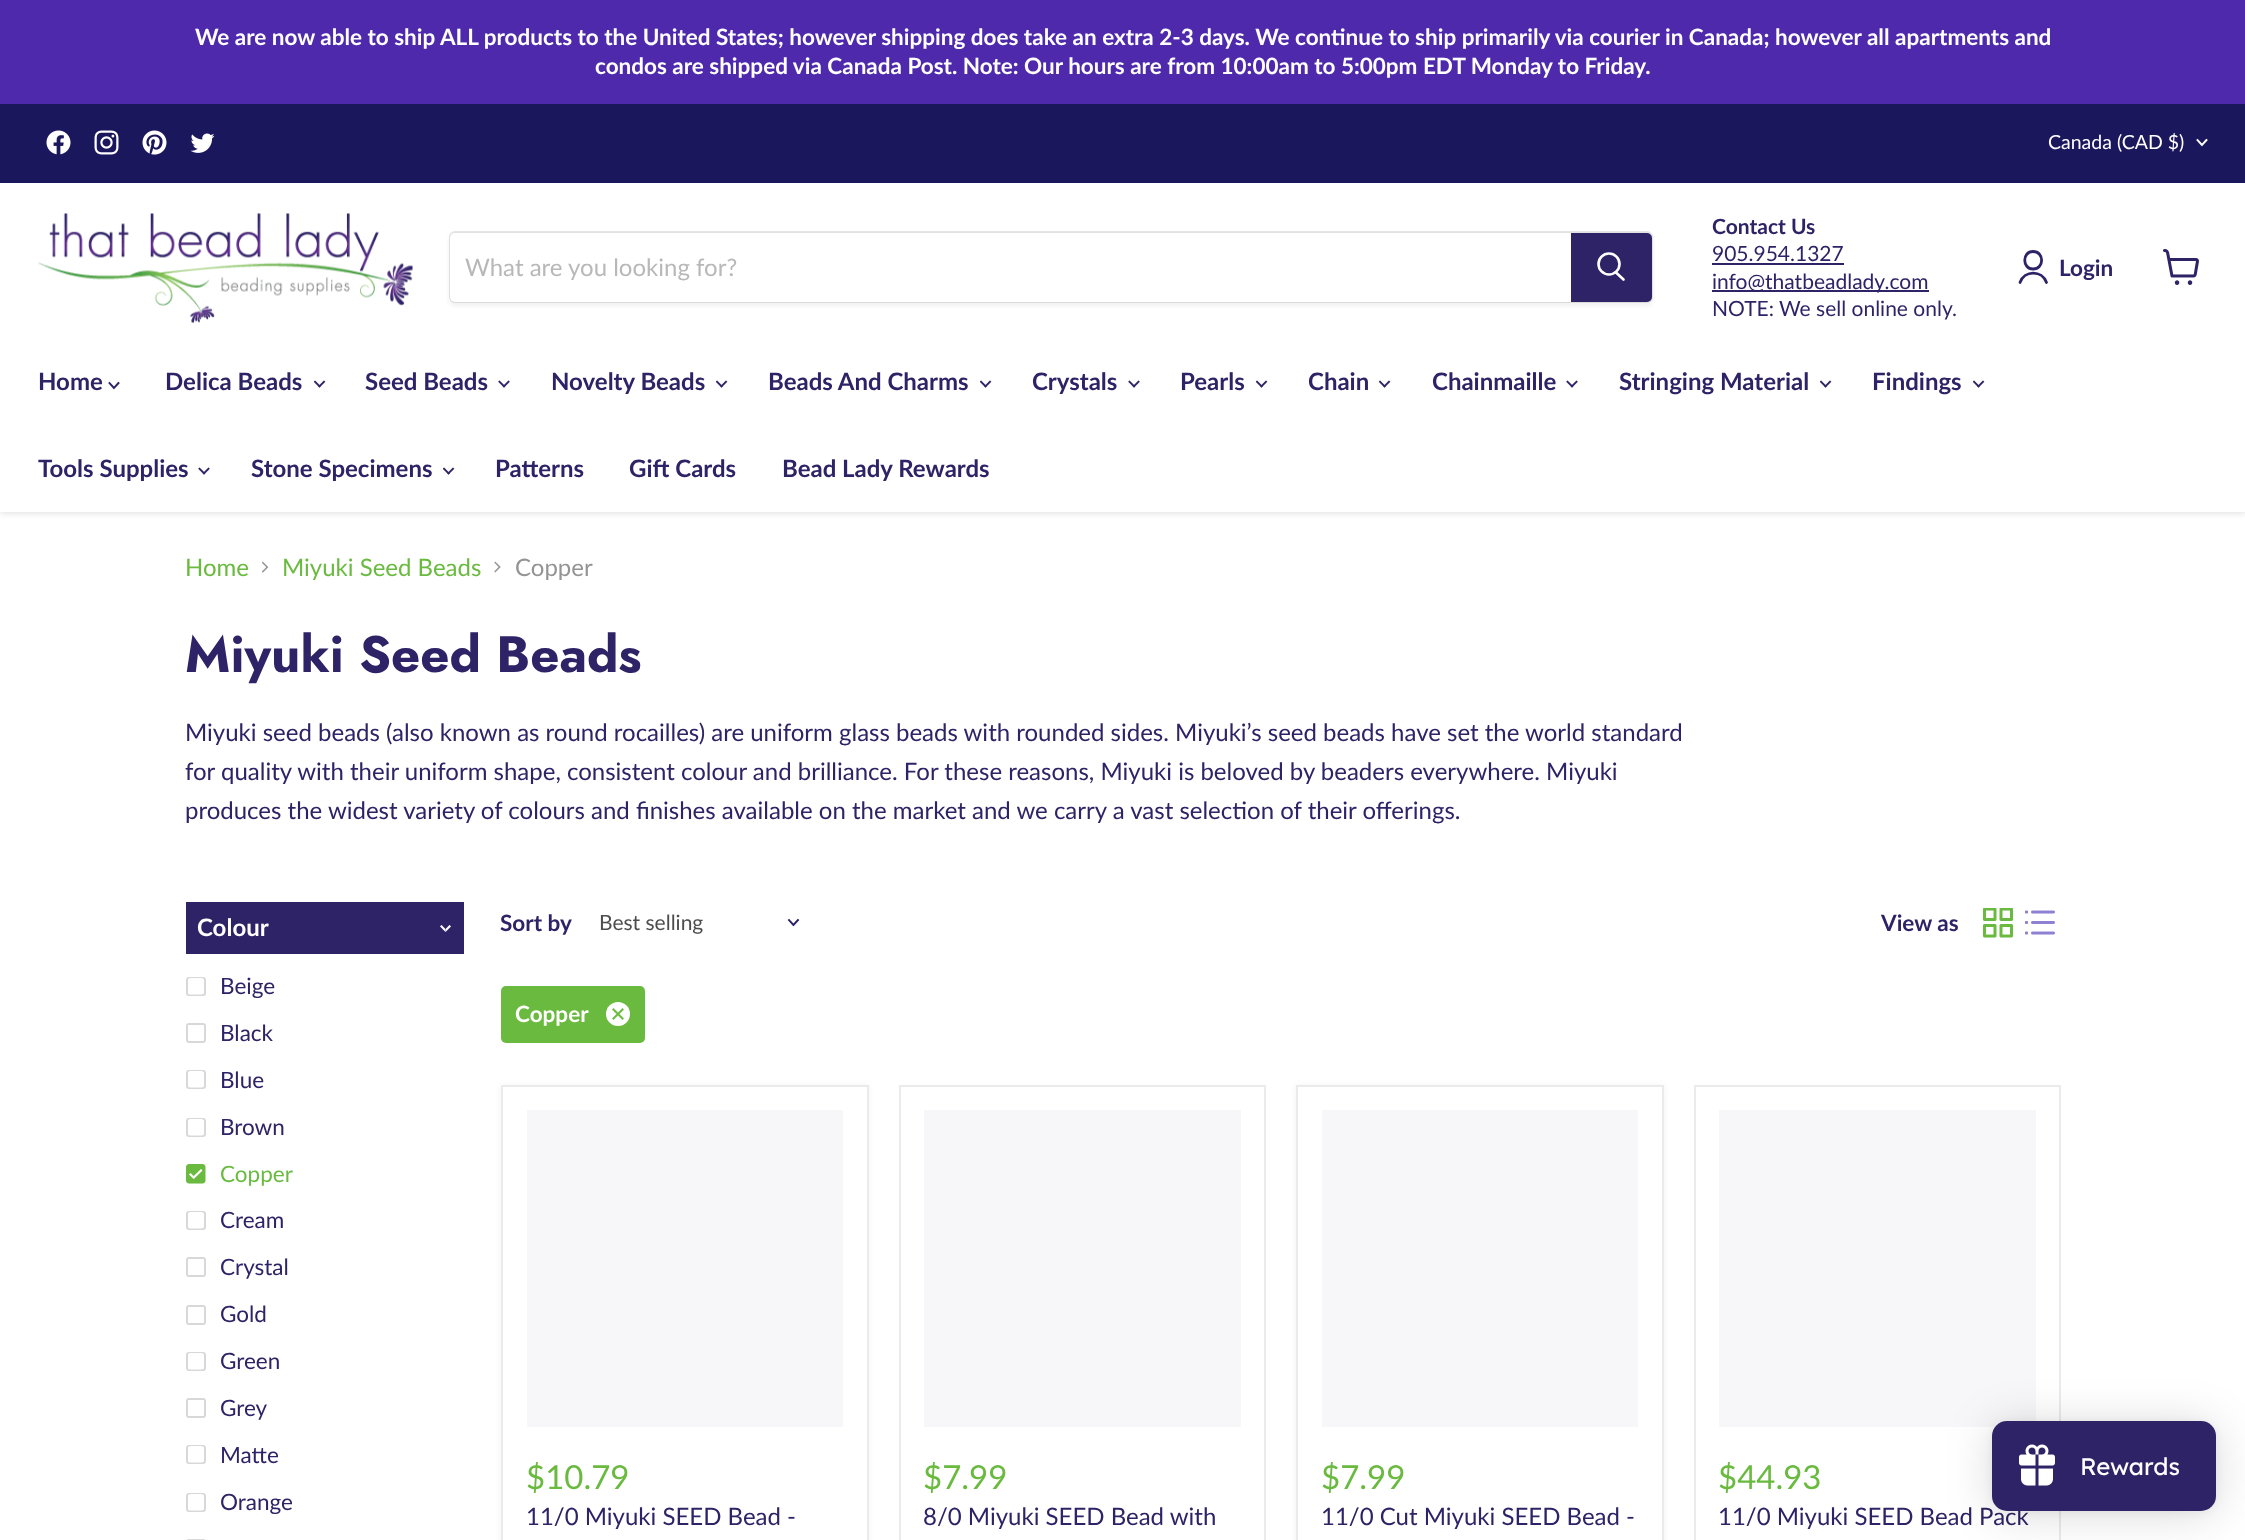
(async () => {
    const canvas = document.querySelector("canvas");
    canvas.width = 2245;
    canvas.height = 1540;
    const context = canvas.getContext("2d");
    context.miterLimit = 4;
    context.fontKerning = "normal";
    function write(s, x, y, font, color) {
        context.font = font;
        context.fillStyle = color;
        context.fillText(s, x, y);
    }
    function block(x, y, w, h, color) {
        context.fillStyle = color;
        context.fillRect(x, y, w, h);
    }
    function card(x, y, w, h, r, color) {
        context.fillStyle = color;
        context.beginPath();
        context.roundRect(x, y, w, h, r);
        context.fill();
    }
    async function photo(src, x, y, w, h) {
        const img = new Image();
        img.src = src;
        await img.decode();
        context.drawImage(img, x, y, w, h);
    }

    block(0, 0, 2245, 1540, "rgb(255, 255, 255)");
    block(0, 0, 2245, 104, "rgb(78, 41, 172)");
    write("We are now able to ship ALL products to the United States; however shipping does take an extra 2-3 days. We continue to ship primarily via courier in Canada; however all apartments and", 195, 45, "bold 22.5px Lato", "rgb(255, 255, 255)");
    write("condos are shipped via Canada Post. Note: Our hours are from 10:00am to 5:00pm EDT Monday to Friday.", 595, 74, "bold 22.5px Lato", "rgb(255, 255, 255)");
    context.fillStyle = "rgba(128, 128, 128, 0.25)";
    context.filter = "blur(3px)";
    context.beginPath();
    context.rect(0, 185, 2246, 328);
    context.fill();
    context.filter = "none";
    block(0, 104, 2245, 79, "rgb(27, 23, 93)");
    await photo("media/1.png", 46, 130, 25, 25);
    await photo("media/2.png", 94, 130, 25, 25);
    await photo("media/3.png", 142, 130, 25, 25);
    await photo("media/4.png", 190, 133, 25, 20);
    write("Canada (CAD $)", 2048, 149, "19.5px Lato", "rgb(255, 255, 255)");
    context.beginPath();
    context.moveTo(2202, 145);
    context.lineTo(2206.5, 140);
    context.moveTo(2202, 145);
    context.lineTo(2197.5, 140);
    context.strokeStyle = "rgb(255, 255, 255)";
    context.lineWidth = 1.9;
    context.lineCap = "square";
    context.stroke();
    block(0, 183, 2245, 329, "rgb(255, 255, 255)");
    await photo("media/5.png", 38, 213, 375, 110);
    context.fillStyle = "rgba(128, 128, 128, 0.11)";
    context.filter = "blur(2px)";
    context.beginPath();
    context.roundRect(449, 234, 1204, 72, 6);
    context.fill();
    context.filter = "none";
    context.beginPath();
    context.roundRect(450, 232, 1202, 70, 5);
    context.strokeStyle = "rgba(128, 128, 128, 0.2)";
    context.lineWidth = 2;
    context.stroke();
    context.fillStyle = "rgb(255, 255, 255)";
    context.beginPath();
    context.roundRect(450, 233, 1121, 69, [5, 0, 0, 5]);
    context.fill();
    write("What are you looking for?", 465, 276, "24px Lato", "rgb(184, 184, 184)");
    context.fillStyle = "rgb(45, 35, 102)";
    context.beginPath();
    context.roundRect(1572, 234, 79, 67, [0, 4, 4, 0]);
    context.fill();
    context.strokeStyle = "rgb(45, 35, 102)";
    context.stroke();
    context.beginPath();
    context.moveTo(1623.5, 279.5);
    context.lineTo(1616, 272.5);
    context.strokeStyle = "rgb(255, 255, 255)";
    context.lineWidth = 2.6;
    context.lineCap = "round";
    context.stroke();
    context.beginPath();
    context.arc(1609, 264, 10.5, 0, Math.PI * 2);
    context.stroke();
    write("Contact Us", 1712, 234, "bold 21px Lato", "rgb(45, 35, 102)");
    write("905.954.1327", 1712, 261, "21px Lato", "rgb(45, 35, 102)");
    block(1712, 263, 132, 2, "rgb(45, 35, 102)");
    block(1712, 290, 217, 2, "rgb(45, 35, 102)");
    write("info@thatbeadlady.com", 1712, 289, "21px Lato", "rgb(45, 35, 102)");
    write("NOTE: We sell online only.", 1712, 316, "21px Lato", "rgb(45, 35, 102)");
    context.beginPath();
    context.moveTo(2033, 269);
    context.bezierCurveTo(2044.5, 269, 2044.5, 251.5, 2033, 251.5);
    context.bezierCurveTo(2022, 251.5, 2022, 269, 2033, 269);
    context.closePath();
    context.moveTo(2046.5, 282.5);
    context.bezierCurveTo(2042, 270, 2024.5, 270, 2020, 282.5);
    context.strokeStyle = "rgb(45, 35, 102)";
    context.lineWidth = 2.8;
    context.lineJoin = "round";
    context.stroke();
    write("Login", 2059, 276, "bold 22.5px Lato", "rgb(45, 35, 102)");
    await photo("media/6.png", 2163, 249, 36, 36);
    write("Home", 38, 390, "bold 24px Lato", "rgb(45, 35, 102)");
    context.beginPath();
    context.moveTo(114, 388);
    context.lineTo(118.5, 383);
    context.moveTo(114, 388);
    context.lineTo(109.5, 383);
    context.lineWidth = 1.9;
    context.lineCap = "square";
    context.lineJoin = "miter";
    context.stroke();
    write("Delica Beads", 165, 390, "bold 24px Lato", "rgb(45, 35, 102)");
    await photo("media/7.png", 314, 380, 12, 8);
    write("Seed Beads", 365, 390, "bold 24px Lato", "rgb(45, 35, 102)");
    await photo("media/8.png", 498, 380, 12, 8);
    write("Novelty Beads", 551, 390, "bold 24px Lato", "rgb(45, 35, 102)");
    await photo("media/7.png", 716, 380, 12, 8);
    write("Beads And Charms", 768, 390, "bold 24px Lato", "rgb(45, 35, 102)");
    await photo("media/7.png", 980, 380, 12, 8);
    write("Crystals", 1032, 390, "bold 24px Lato", "rgb(45, 35, 102)");
    await photo("media/8.png", 1128, 380, 12, 8);
    write("Pearls", 1180, 390, "bold 24px Lato", "rgb(45, 35, 102)");
    await photo("media/7.png", 1256, 380, 12, 8);
    write("Chain", 1308, 390, "bold 24px Lato", "rgb(45, 35, 102)");
    await photo("media/7.png", 1379, 380, 12, 8);
    write("Chainmaille", 1432, 390, "bold 24px Lato", "rgb(45, 35, 102)");
    await photo("media/8.png", 1566, 380, 12, 8);
    write("Stringing Material", 1619, 390, "bold 24px Lato", "rgb(45, 35, 102)");
    await photo("media/7.png", 1820, 380, 12, 8);
    write("Findings", 1872, 390, "bold 24px Lato", "rgb(45, 35, 102)");
    await photo("media/7.png", 1973, 380, 12, 8);
    write("Tools Supplies", 38, 477, "bold 24px Lato", "rgb(45, 35, 102)");
    await photo("media/8.png", 198, 467, 12, 8);
    write("Stone Specimens", 251, 477, "bold 24px Lato", "rgb(45, 35, 102)");
    await photo("media/7.png", 443, 467, 12, 8);
    write("Patterns", 495, 477, "bold 24px Lato", "rgb(45, 35, 102)");
    write("Gift Cards", 629, 477, "bold 24px Lato", "rgb(45, 35, 102)");
    write("Bead Lady Rewards", 782, 477, "bold 24px Lato", "rgb(45, 35, 102)");
    write("Home", 185, 576, "24px Lato", "rgb(106, 186, 63)");
    await photo("media/9.png", 262, 561, 7, 12);
    write("Miyuki Seed Beads", 282, 576, "24px Lato", "rgb(106, 186, 63)");
    await photo("media/10.png", 494, 561, 7, 12);
    write("Copper", 515, 576, "24px Lato", "rgb(148, 148, 148)");
    write("Miyuki Seed Beads", 185, 672, "bold 51px Jost", "rgb(45, 35, 102)");
    write("Miyuki seed beads (also known as round rocailles) are uniform glass beads with rounded sides. Miyuki’s seed beads have set the world standard", 185, 741, "24px Lato", "rgb(45, 35, 102)");
    write("for quality with their uniform shape, consistent colour and brilliance. For these reasons, Miyuki is beloved by beaders everywhere. Miyuki", 185, 780, "24px Lato", "rgb(45, 35, 102)");
    write("produces the widest variety of colours and finishes available on the market and we carry a vast selection of their offerings.", 185, 819, "24px Lato", "rgb(45, 35, 102)");
    block(186, 902, 278, 52, "rgb(45, 35, 102)");
    write("Colour", 197, 936, "bold 24px Lato", "rgb(255, 255, 255)");
    await photo("media/11.png", 440, 925, 11, 7);
    context.beginPath();
    context.roundRect(187, 978, 18, 17, 2);
    context.strokeStyle = "rgb(216, 216, 216)";
    context.lineWidth = 2;
    context.stroke();
    await photo("media/12.png", 188, 978, 16, 17);
    write("Beige", 220, 994, "22.5px Lato", "rgb(45, 35, 102)");
    context.beginPath();
    context.roundRect(187, 1024, 18, 18, 2);
    context.stroke();
    block(188, 1025, 1, 1, "rgb(250, 250, 250)");
    write("Black", 220, 1041, "22.5px Lato", "rgb(45, 35, 102)");
    context.beginPath();
    context.roundRect(187, 1071, 18, 17, 2);
    context.stroke();
    await photo("media/12.png", 188, 1071, 16, 17);
    write("Blue", 220, 1088, "22.5px Lato", "rgb(45, 35, 102)");
    context.beginPath();
    context.roundRect(187, 1119, 18, 17, 2);
    context.stroke();
    await photo("media/12.png", 188, 1119, 16, 17);
    write("Brown", 220, 1135, "22.5px Lato", "rgb(45, 35, 102)");
    await photo("media/13.png", 186, 1164, 20, 20);
    write("Copper", 220, 1182, "22.5px Lato", "rgb(106, 186, 63)");
    context.beginPath();
    context.roundRect(187, 1212, 18, 17, 2);
    context.stroke();
    await photo("media/12.png", 188, 1212, 16, 17);
    write("Cream", 220, 1228, "22.5px Lato", "rgb(45, 35, 102)");
    context.beginPath();
    context.roundRect(187, 1258, 18, 18, 2);
    context.stroke();
    block(188, 1259, 1, 1, "rgb(250, 250, 250)");
    write("Crystal", 220, 1275, "22.5px Lato", "rgb(45, 35, 102)");
    context.beginPath();
    context.roundRect(187, 1306, 18, 18, 2);
    context.stroke();
    block(188, 1307, 1, 1, "rgb(250, 250, 250)");
    write("Gold", 220, 1322, "22.5px Lato", "rgb(45, 35, 102)");
    context.beginPath();
    context.roundRect(187, 1353, 18, 17, 2);
    context.stroke();
    await photo("media/12.png", 188, 1353, 16, 17);
    write("Green", 220, 1369, "22.5px Lato", "rgb(45, 35, 102)");
    context.beginPath();
    context.roundRect(187, 1399, 18, 18, 2);
    context.stroke();
    block(188, 1400, 1, 1, "rgb(250, 250, 250)");
    write("Grey", 220, 1416, "22.5px Lato", "rgb(45, 35, 102)");
    context.beginPath();
    context.roundRect(187, 1446, 18, 17, 2);
    context.stroke();
    await photo("media/12.png", 188, 1446, 16, 17);
    write("Matte", 220, 1463, "22.5px Lato", "rgb(45, 35, 102)");
    context.beginPath();
    context.roundRect(187, 1494, 18, 17, 2);
    context.stroke();
    await photo("media/12.png", 188, 1494, 16, 17);
    write("Orange", 220, 1510, "22.5px Lato", "rgb(45, 35, 102)");
    context.beginPath();
    context.roundRect(187, 1540, 18, 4, 2);
    context.stroke();
    write("Sort by", 500, 931, "bold 22.5px Lato", "rgb(45, 35, 102)");
    write("Best selling", 599, 930, "21px Lato", "rgb(77, 77, 77)");
    context.beginPath();
    context.moveTo(793.5, 925);
    context.lineTo(798, 920);
    context.moveTo(793.5, 925);
    context.lineTo(789, 920);
    context.strokeStyle = "rgb(45, 35, 102)";
    context.lineWidth = 1.9;
    context.stroke();
    write("View as", 1881, 931, "bold 22.5px Lato", "rgb(45, 35, 102)");
    await photo("media/14.png", 1983, 908, 30, 30);
    await photo("media/15.png", 2025, 910, 30, 25);
    card(501, 986, 144, 57, 5, "rgb(106, 186, 63)");
    write("Copper", 515, 1022, "bold 22.5px Lato", "rgb(255, 255, 255)");
    context.beginPath();
    context.arc(618, 1014, 12, 0, Math.PI * 2);
    context.fill();
    await photo("media/16.png", 612, 1008, 12, 12);
    context.fillStyle = "rgba(128, 128, 128, 0.11)";
    context.filter = "blur(3px)";
    context.beginPath();
    context.rect(501, 1086, 368, 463);
    context.fill();
    context.filter = "none";
    context.fillStyle = "rgb(255, 255, 255)";
    context.beginPath();
    context.rect(502, 1086, 366, 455);
    context.fill();
    context.strokeStyle = "rgb(235, 235, 235)";
    context.lineWidth = 2;
    context.stroke();
    block(527, 1110, 316, 317, "rgb(247, 246, 249)");
    write("$10.79", 526, 1489, "33px Lato", "rgb(106, 186, 63)");
    write("11/0 Miyuki SEED Bead -", 526, 1525, "24px Lato", "rgb(45, 35, 102)");
    context.strokeRect(900, 1086, 365, 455);
    block(924, 1110, 317, 317, "rgb(247, 246, 249)");
    write("$7.99", 923, 1489, "33px Lato", "rgb(106, 186, 63)");
    write("8/0 Miyuki SEED Bead with", 923, 1525, "24px Lato", "rgb(45, 35, 102)");
    context.fillStyle = "rgba(128, 128, 128, 0.11)";
    context.filter = "blur(3px)";
    context.beginPath();
    context.rect(1296, 1086, 368, 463);
    context.fill();
    context.filter = "none";
    context.fillStyle = "rgb(255, 255, 255)";
    context.beginPath();
    context.rect(1297, 1086, 366, 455);
    context.fill();
    context.stroke();
    block(1322, 1110, 316, 317, "rgb(247, 246, 249)");
    write("$7.99", 1321, 1489, "33px Lato", "rgb(106, 186, 63)");
    write("11/0 Cut Miyuki SEED Bead -", 1321, 1525, "24px Lato", "rgb(45, 35, 102)");
    context.strokeRect(1695, 1086, 365, 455);
    block(1719, 1110, 317, 317, "rgb(247, 246, 249)");
    write("$44.93", 1718, 1489, "33px Lato", "rgb(106, 186, 63)");
    write("11/0 Miyuki SEED Bead Pack", 1718, 1525, "24px Lato", "rgb(45, 35, 102)");
    context.fillStyle = "rgba(0, 0, 0, 0.15)";
    context.filter = "blur(22.5px)";
    context.beginPath();
    context.roundRect(1992, 1424, 224, 90, 15);
    context.fill();
    context.filter = "none";
    context.fillStyle = "rgba(0, 0, 0, 0.05)";
    context.filter = "blur(4.5px)";
    context.beginPath();
    context.roundRect(1992, 1422, 224, 90, 15);
    context.fill();
    context.filter = "none";
    card(1992, 1421, 224, 90, 15, "rgb(45, 35, 102)");
    await photo("media/17.png", 2019, 1444, 36, 42);
    write("Rewards", 2080, 1475, "24px Lexend", "rgb(255, 255, 255)");
})();
